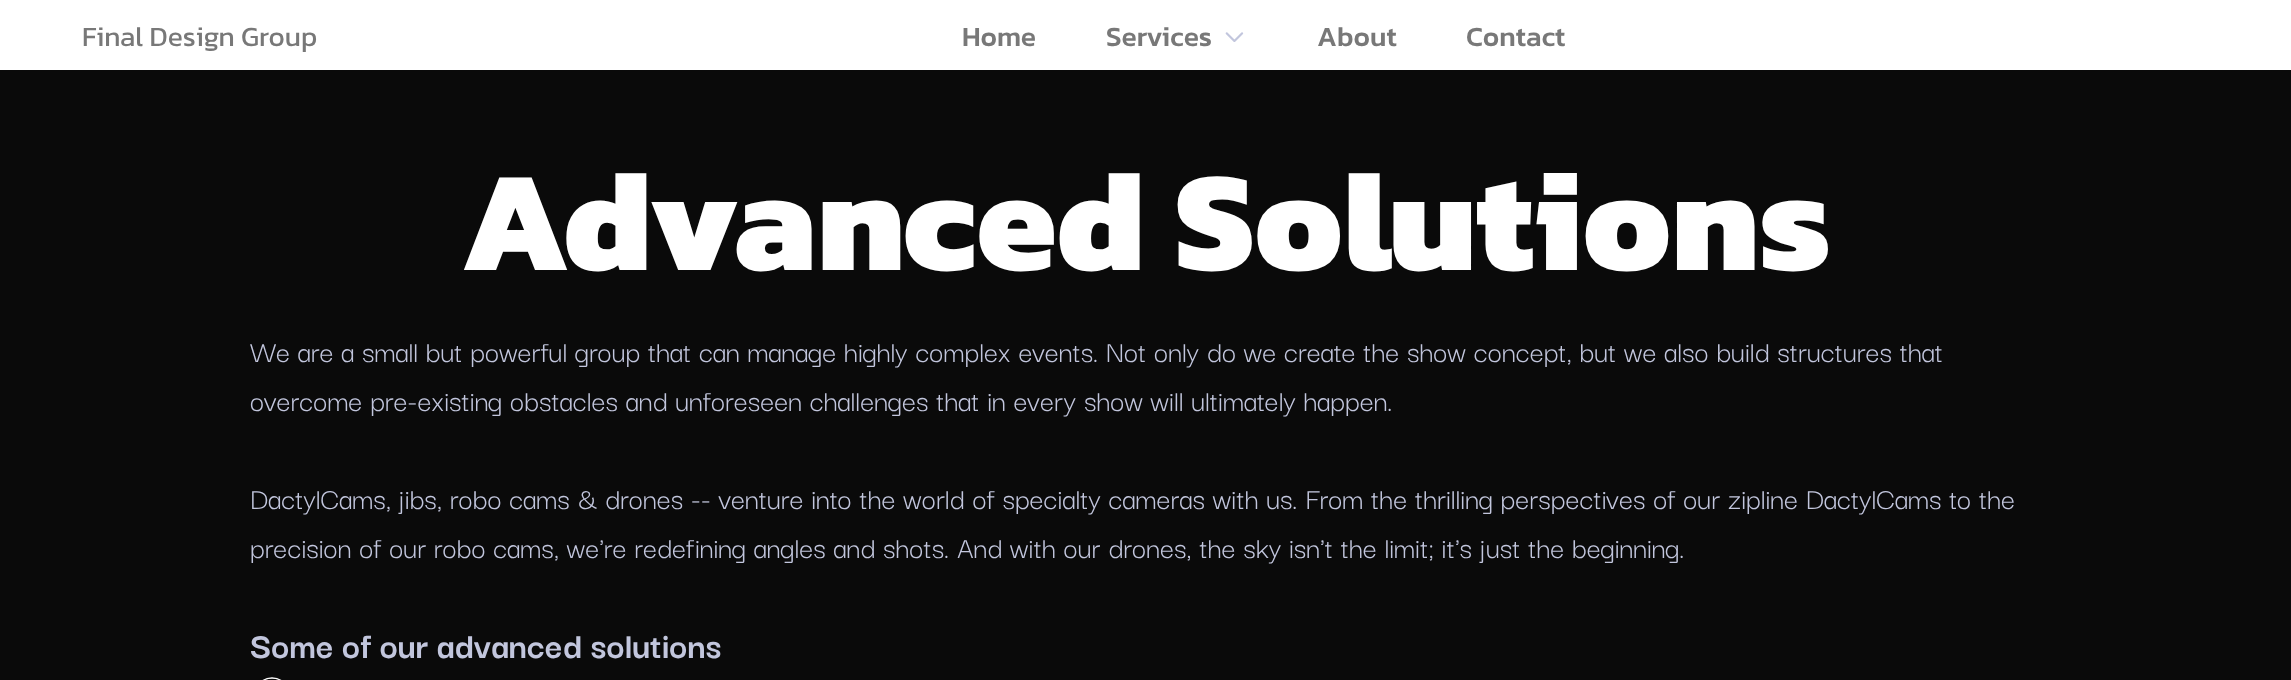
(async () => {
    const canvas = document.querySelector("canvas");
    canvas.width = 2291;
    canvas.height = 680;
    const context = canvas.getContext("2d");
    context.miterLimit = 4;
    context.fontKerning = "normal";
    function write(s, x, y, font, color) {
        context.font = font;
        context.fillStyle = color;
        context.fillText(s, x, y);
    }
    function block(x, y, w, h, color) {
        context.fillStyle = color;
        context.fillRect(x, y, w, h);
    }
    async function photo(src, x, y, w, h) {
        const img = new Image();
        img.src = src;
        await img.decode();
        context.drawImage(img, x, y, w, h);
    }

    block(0, 0, 2291, 680, "rgb(10, 10, 10)");
    block(0, 0, 2291, 70, "rgb(255, 255, 255)");
    write("Final Design Group", 82, 46, "28px Kanit", "rgb(120, 120, 120)");
    write("Home", 962, 46, "500 28px Kanit", "rgb(120, 120, 120)");
    write("Services", 1106, 46, "500 28px Kanit", "rgb(120, 120, 120)");
    await photo("media/1.png", 1225, 32, 19, 10);
    write("About", 1317, 46, "500 28px Kanit", "rgb(120, 120, 120)");
    write("Contact", 1466, 46, "500 28px Kanit", "rgb(120, 120, 120)");
    write("Advanced Solutions", 461, 270, "800 143.5px Kanit", "rgb(255, 255, 255)");
    write("We are a small but powerful group that can manage highly complex events. Not only do we create the show concept, but we also build structures that", 250, 362, "31.5px Darker Grotesque", "rgb(194, 198, 221)");
    write("overcome pre-existing obstacles and unforeseen challenges that in every show will ultimately happen.", 250, 411, "31.5px Darker Grotesque", "rgb(194, 198, 221)");
    write("DactylCams, jibs, robo cams & drones -- venture into the world of specialty cameras with us. From the thrilling perspectives of our zipline DactylCams to the", 250, 509, "31.5px Darker Grotesque", "rgb(194, 198, 221)");
    write("precision of our robo cams, we're redefining angles and shots. And with our drones, the sky isn't the limit; it's just the beginning.", 250, 558, "31.5px Darker Grotesque", "rgb(194, 198, 221)");
    write("Some of our advanced solutions", 250, 658, "bold 38.5px Darker Grotesque", "rgb(194, 198, 221)");
    context.beginPath();
    context.arc(272, 695.5, 17.5, 0, Math.PI * 2);
    context.strokeStyle = "rgb(255, 255, 255)";
    context.lineWidth = 1.3;
    context.stroke();
})();
